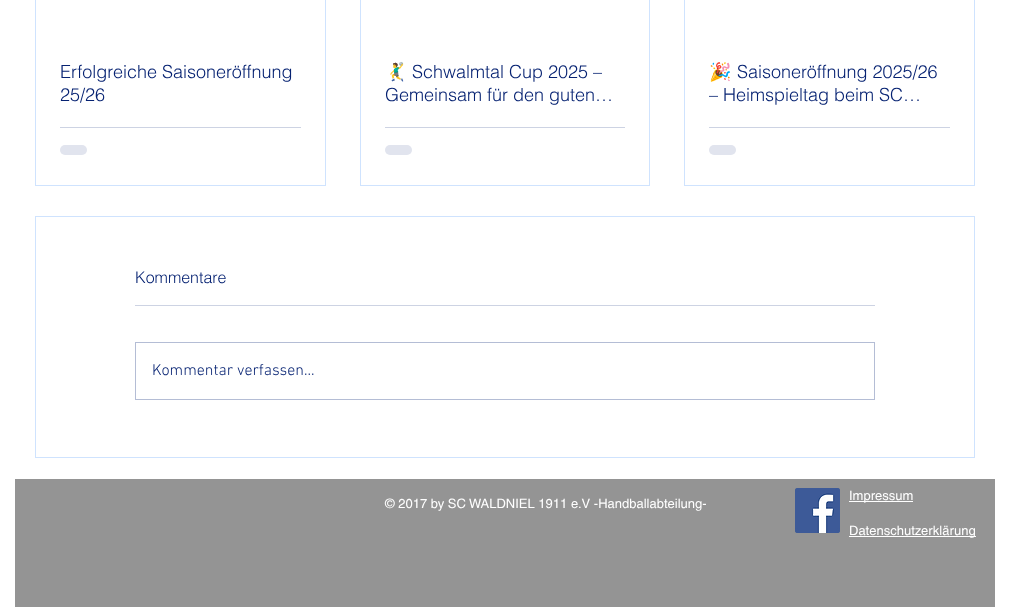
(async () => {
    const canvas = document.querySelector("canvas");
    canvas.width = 1010;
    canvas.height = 607;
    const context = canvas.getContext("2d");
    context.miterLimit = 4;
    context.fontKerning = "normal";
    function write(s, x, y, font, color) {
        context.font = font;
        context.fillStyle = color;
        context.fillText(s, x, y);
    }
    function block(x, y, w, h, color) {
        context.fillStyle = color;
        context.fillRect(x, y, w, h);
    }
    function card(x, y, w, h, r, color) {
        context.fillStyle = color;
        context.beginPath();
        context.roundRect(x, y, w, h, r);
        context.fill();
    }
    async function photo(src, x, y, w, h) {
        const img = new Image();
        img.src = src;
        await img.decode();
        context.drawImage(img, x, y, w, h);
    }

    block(0, 0, 1010, 607, "rgb(255, 255, 255)");
    context.strokeStyle = "rgb(207, 227, 254)";
    context.strokeRect(35.5, -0.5, 290, 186);
    write("Erfolgreiche Saisoneröffnung", 60, 78, "300 18px helvetica", "rgb(6, 34, 114)");
    write("25/26", 60, 101, "300 18px helvetica", "rgb(6, 34, 114)");
    block(60, 127, 241, 1, "rgb(205, 211, 227)");
    card(60, 145, 27, 10, 5, "rgb(225, 228, 238)");
    context.strokeRect(360.5, -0.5, 289, 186);
    context.save();
    context.beginPath();
    context.rect(385, 60, 240, 46);
    context.clip();
    write("🤾‍♂", 385, 78, "18px Noto Color Emoji", "rgb(6, 34, 114)");
    context.restore();
    write("Schwalmtal Cup 2025 –", 412, 78, "300 18px helvetica", "rgb(6, 34, 114)");
    write("Gemeinsam für den guten…", 385, 101, "300 18px helvetica", "rgb(6, 34, 114)");
    block(385, 127, 240, 1, "rgb(205, 211, 227)");
    card(385, 145, 27, 10, 5, "rgb(225, 228, 238)");
    context.strokeRect(684.5, -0.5, 290, 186);
    write("🎉", 709, 78, "18px Noto Color Emoji", "rgb(6, 34, 114)");
    write("Saisoneröffnung 2025/26", 737, 78, "300 18px helvetica", "rgb(6, 34, 114)");
    write("– Heimspieltag beim SC…", 709, 101, "300 18px helvetica", "rgb(6, 34, 114)");
    block(709, 127, 241, 1, "rgb(205, 211, 227)");
    card(709, 145, 27, 10, 5, "rgb(225, 228, 238)");
    context.strokeRect(35.5, 216.5, 939, 241);
    write("Kommentare", 135, 283, "300 16px helvetica", "rgb(6, 34, 114)");
    block(135, 305, 740, 1, "rgb(205, 211, 227)");
    context.strokeStyle = "rgb(180, 189, 213)";
    context.strokeRect(135.5, 342.5, 739, 57);
    write("Kommentar verfassen...", 152, 375, "300 16px 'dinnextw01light'", "rgb(6, 34, 114)");
    block(15, 479, 980, 128, "rgb(148, 148, 148)");
    await photo("media/1.png", 795, 488, 45, 45);
    block(849, 501, 64, 1, "rgb(255, 255, 255)");
    write("Impressum", 849, 500, "13px helvetica", "rgb(255, 255, 255)");
    write("© 2017 by SC WALDNIEL 1911 e.V -Handballabteilung-", 385, 508, "13px helvetica", "rgb(255, 255, 255)");
    block(849, 536, 127, 1, "rgb(255, 255, 255)");
    write("Datenschutzerklärung", 849, 535, "13px helvetica", "rgb(255, 255, 255)");
})();
